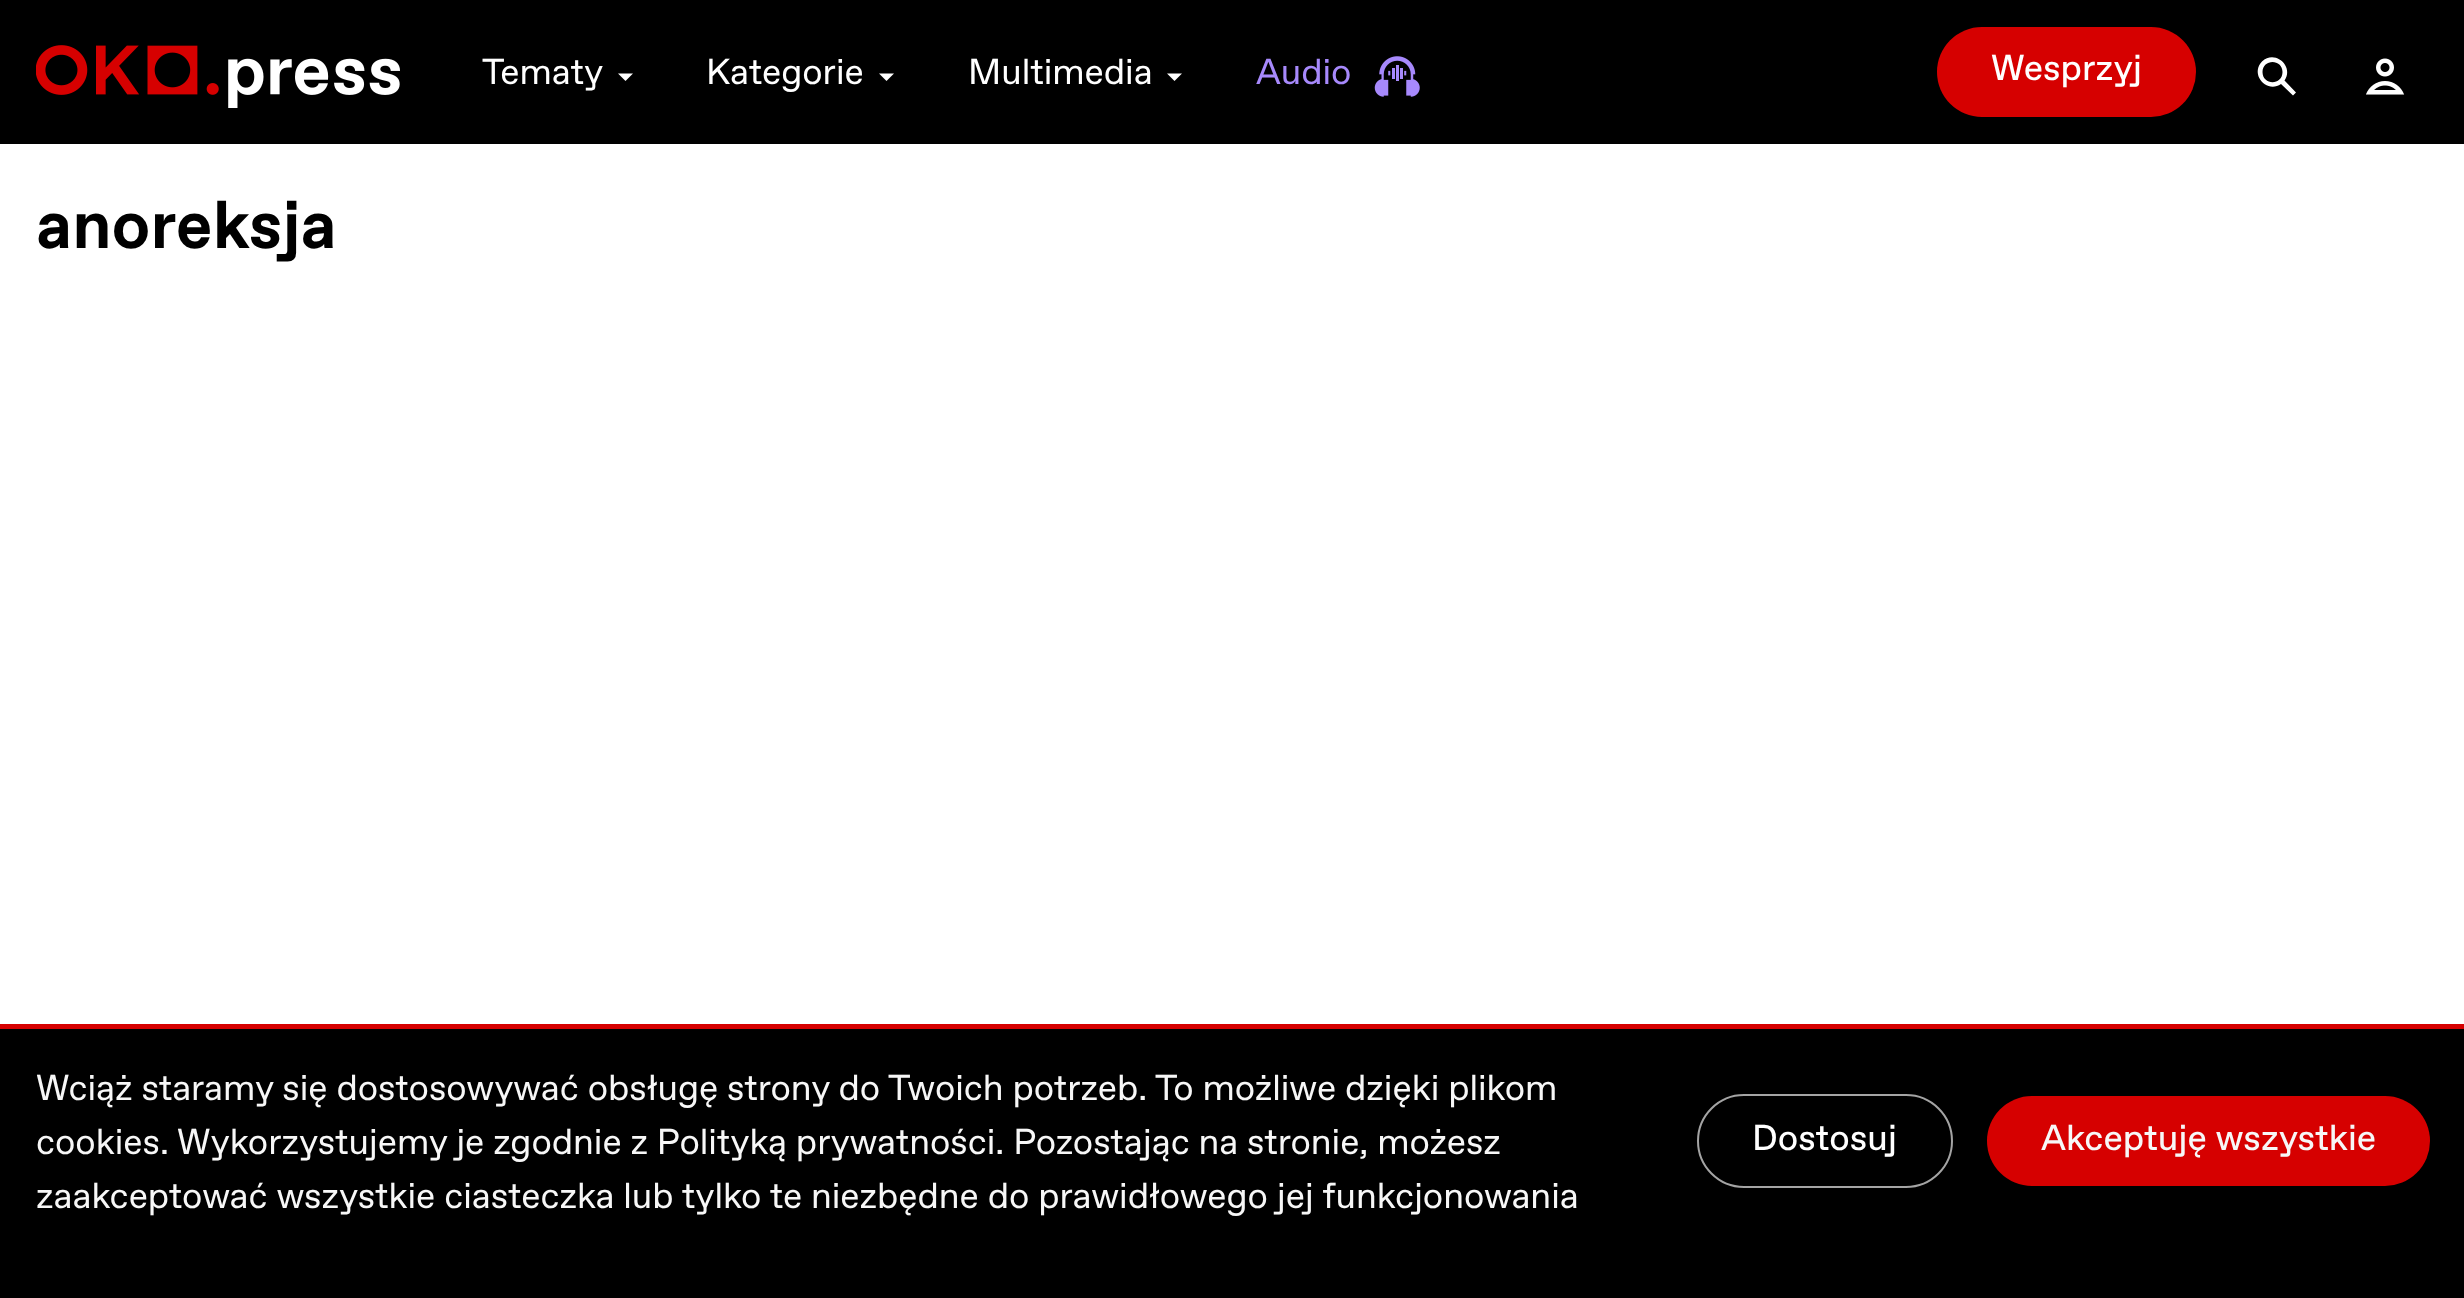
(async () => {
    const canvas = document.querySelector("canvas");
    canvas.width = 2464;
    canvas.height = 1298;
    const context = canvas.getContext("2d");
    context.miterLimit = 4;
    context.fontKerning = "normal";
    function write(s, x, y, font, color) {
        context.font = font;
        context.fillStyle = color;
        context.fillText(s, x, y);
    }
    function block(x, y, w, h, color) {
        context.fillStyle = color;
        context.fillRect(x, y, w, h);
    }
    function card(x, y, w, h, r, color) {
        context.fillStyle = color;
        context.beginPath();
        context.roundRect(x, y, w, h, r);
        context.fill();
    }
    async function photo(src, x, y, w, h) {
        const img = new Image();
        img.src = src;
        await img.decode();
        context.drawImage(img, x, y, w, h);
    }

    block(0, 0, 2464, 1298, "rgb(255, 255, 255)");
    block(0, 0, 2464, 144, "rgb(0, 0, 0)");
    await photo("media/1.png", 36, 45, 364, 63);
    write("Tematy", 482, 84, "300 36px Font", "rgb(255, 255, 255)");
    context.beginPath();
    context.moveTo(618, 73.5);
    context.lineTo(625.5, 81);
    context.lineTo(633, 73.5);
    context.closePath();
    context.fill();
    write("Kategorie", 706, 84, "300 36px Font", "rgb(255, 255, 255)");
    context.beginPath();
    context.moveTo(879, 73.5);
    context.lineTo(886.5, 81);
    context.lineTo(894, 73.5);
    context.closePath();
    context.fill();
    write("Multimedia", 968, 84, "300 36px Font", "rgb(255, 255, 255)");
    context.beginPath();
    context.moveTo(1167, 73.5);
    context.lineTo(1174.5, 81);
    context.lineTo(1182, 73.5);
    context.closePath();
    context.fill();
    write("Audio", 1256, 84, "300 36px Font", "rgb(167, 137, 252)");
    await photo("media/2.png", 1374, 56, 46, 41);
    card(1937, 27, 259, 90, 45, "rgb(214, 0, 0)");
    write("Wesprzyj", 1991, 80, "36px Font", "rgb(255, 255, 255)");
    context.beginPath();
    context.moveTo(2296, 92.5);
    context.lineTo(2284.5, 80.5);
    context.bezierCurveTo(2294.5, 66.5, 2275, 49, 2262, 61.5);
    context.bezierCurveTo(2249.5, 74.5, 2267, 94, 2281, 84);
    context.lineTo(2293, 95.5);
    context.closePath();
    context.moveTo(2262.5, 72);
    context.bezierCurveTo(2262.5, 58.5, 2282.5, 58.5, 2282.5, 72);
    context.bezierCurveTo(2282.5, 85.5, 2262.5, 85.5, 2262.5, 72);
    context.closePath();
    context.fill("evenodd");
    await photo("media/3.png", 2366, 58, 39, 37);
    write("anoreksja", 36, 248, "bold 67.5px Font", "rgb(0, 0, 0)");
    block(0, 1029, 2464, 269, "rgb(0, 0, 0)");
    block(0, 1024, 2464, 5, "rgb(214, 0, 0)");
    write("Wciąż staramy się dostosowywać obsługę strony do Twoich potrzeb. To możliwe dzięki plikom", 36, 1100, "300 36px Font", "rgb(247, 247, 247)");
    write("cookies. Wykorzystujemy je zgodnie z Polityką prywatności. Pozostając na stronie, możesz", 36, 1154, "300 36px Font", "rgb(247, 247, 247)");
    write("zaakceptować wszystkie ciasteczka lub tylko te niezbędne do prawidłowego jej funkcjonowania", 36, 1208, "300 36px Font", "rgb(247, 247, 247)");
    context.beginPath();
    context.roundRect(1698, 1095, 254, 92, 46);
    context.strokeStyle = "rgb(164, 164, 164)";
    context.lineWidth = 2;
    context.stroke();
    write("Dostosuj", 1752, 1150, "36px Font", "rgb(255, 255, 255)");
    card(1987, 1096, 443, 90, 45, "rgb(214, 0, 0)");
    write("Akceptuję wszystkie", 2041, 1150, "36px Font", "rgb(247, 247, 247)");
})();
